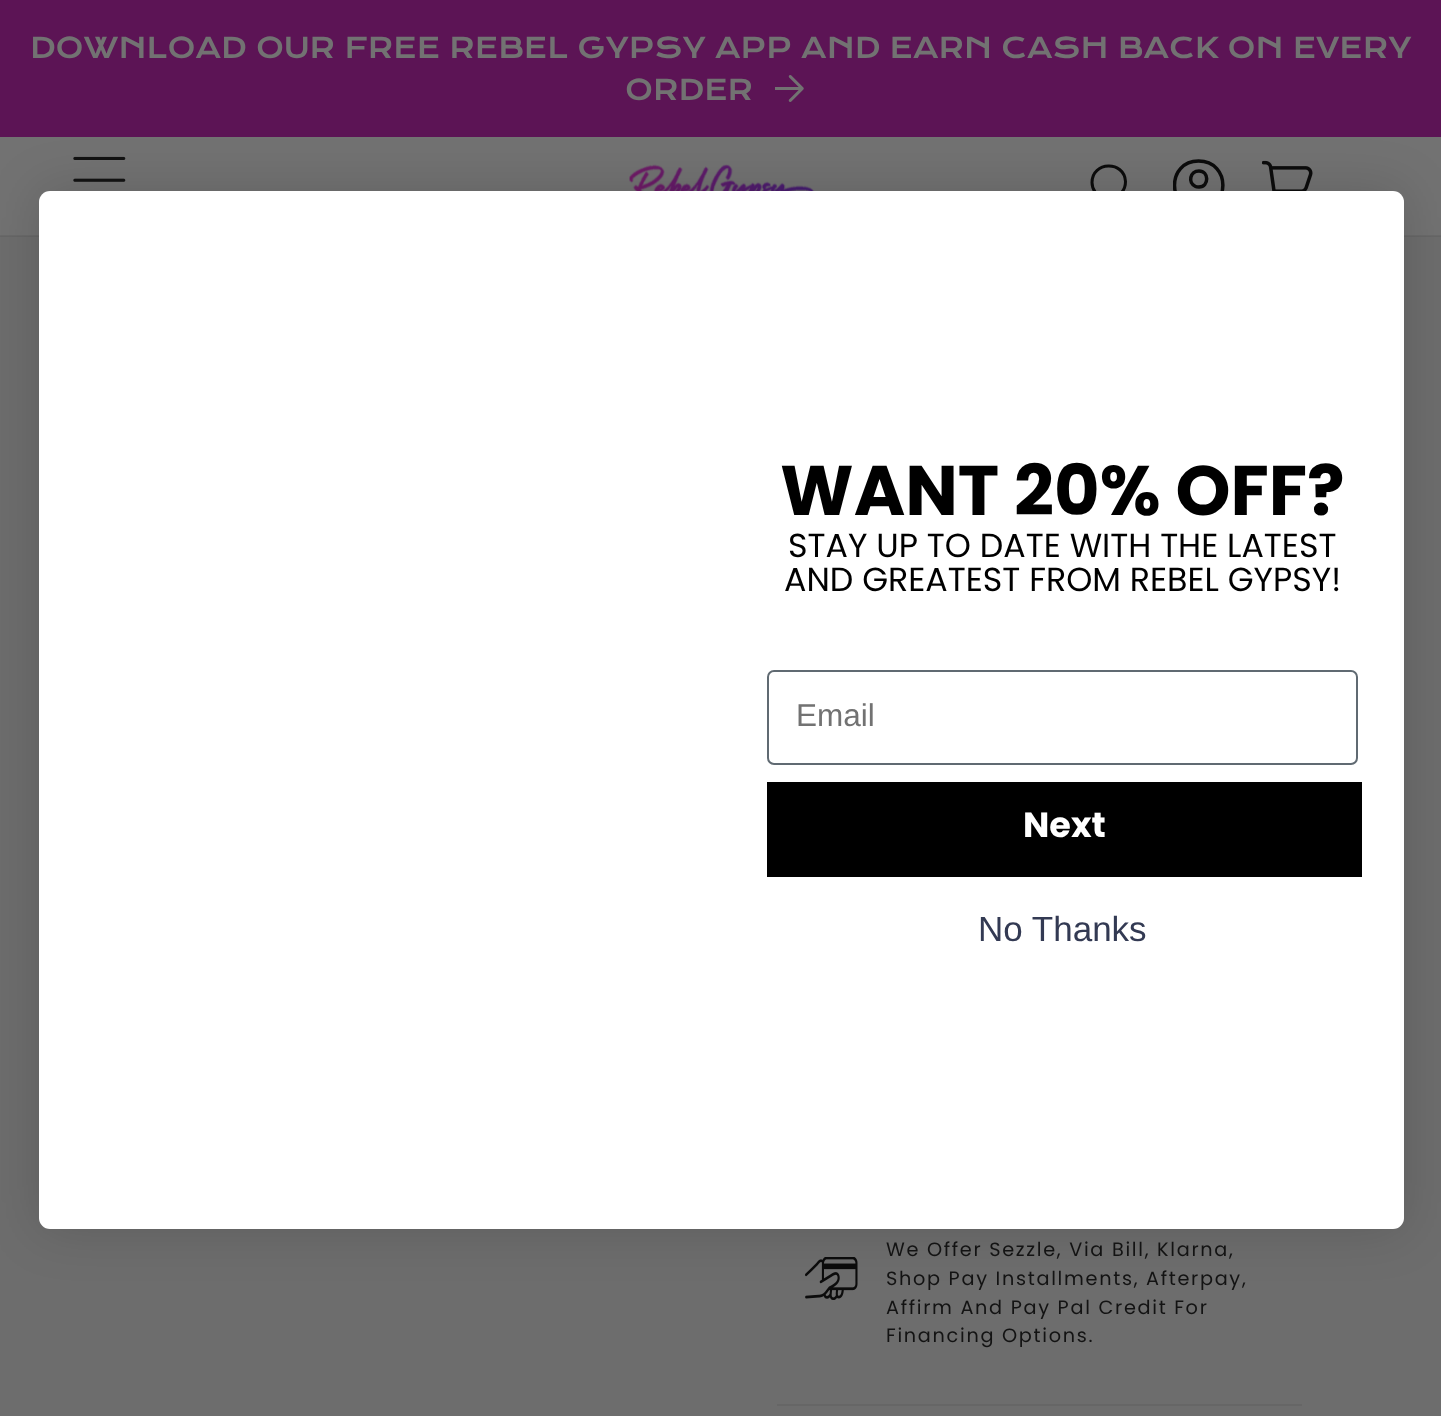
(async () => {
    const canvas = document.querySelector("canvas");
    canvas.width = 1441;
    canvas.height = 1416;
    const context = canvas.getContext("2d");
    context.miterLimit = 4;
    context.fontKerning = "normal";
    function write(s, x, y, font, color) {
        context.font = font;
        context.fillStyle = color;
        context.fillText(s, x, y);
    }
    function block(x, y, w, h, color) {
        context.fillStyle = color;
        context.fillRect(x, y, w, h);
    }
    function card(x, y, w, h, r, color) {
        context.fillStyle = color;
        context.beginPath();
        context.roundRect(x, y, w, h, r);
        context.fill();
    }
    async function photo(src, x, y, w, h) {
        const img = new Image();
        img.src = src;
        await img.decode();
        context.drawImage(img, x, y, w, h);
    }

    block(0, 0, 1441, 1416, "rgb(114, 114, 114)");
    block(0, 235, 1441, 1, "rgb(106, 106, 106)");
    block(0, 0, 1441, 137, "rgb(92, 20, 85)");
    write("DOWNLOAD OUR FREE REBEL GYPSY APP AND EARN CASH BACK ON EVERY", 30, 58, "28px Krona One", "rgb(114, 114, 114)");
    write("ORDER", 625, 100, "28px Krona One", "rgb(114, 114, 114)");
    await photo("media/1.png", 775, 75, 29, 27);
    await photo("media/2.png", 73, 156, 53, 26);
    await photo("media/3.png", 629, 164, 186, 27);
    context.beginPath();
    context.moveTo(1092, 182.5);
    context.bezierCurveTo(1092, 161, 1124.5, 160.5, 1125.5, 181.5);
    context.bezierCurveTo(1125.5, 185.5, 1124.5, 189, 1122, 192);
    context.bezierCurveTo(1112.5, 205, 1092, 198, 1092, 182.5);
    context.closePath();
    context.strokeStyle = "rgb(12, 12, 12)";
    context.lineWidth = 3;
    context.lineCap = "round";
    context.lineJoin = "round";
    context.stroke();
    context.beginPath();
    context.moveTo(1199, 187);
    context.bezierCurveTo(1198, 187, 1196.5, 187, 1195.5, 186.5);
    context.bezierCurveTo(1187.5, 183, 1190, 171, 1199, 171);
    context.bezierCurveTo(1209, 171, 1209.5, 186.5, 1199, 187);
    context.closePath();
    context.lineWidth = 3.5;
    context.stroke();
    context.save();
    context.beginPath();
    context.rect(1173, 158, 52, 54);
    context.clip();
    context.beginPath();
    context.moveTo(1198.5, 209.5);
    context.bezierCurveTo(1231, 209.5, 1231, 161, 1198.5, 161);
    context.bezierCurveTo(1166.5, 161, 1166.5, 209.5, 1198.5, 209.5);
    context.closePath();
    context.stroke();
    context.restore();
    await photo("media/4.png", 1262, 160, 51, 31);
    block(0, 237, 1441, 1179, "rgb(109, 109, 109)");
    block(0, 236, 1441, 1, "rgb(102, 102, 102)");
    await photo("media/5.png", 805, 1257, 53, 43);
    context.fillStyle = "rgba(0, 0, 0, 0.15)";
    context.filter = "blur(26px)";
    context.beginPath();
    context.roundRect(39, 191, 1365, 1038, 11);
    context.fill();
    context.filter = "none";
    card(39, 191, 1365, 1038, 11, "rgb(255, 255, 255)");
    write("WANT 20% OFF?", 780, 515, "bold 70px Poppins", "rgb(0, 0, 0)");
    write("STAY UP TO DATE WITH THE LATEST", 788, 557, "33.25px Poppins", "rgb(0, 0, 0)");
    write("AND GREATEST FROM REBEL GYPSY!", 784, 591, "33.25px Poppins", "rgb(0, 0, 0)");
    context.beginPath();
    context.roundRect(768, 671, 589, 93, 6);
    context.strokeStyle = "rgb(96, 106, 114)";
    context.lineWidth = 2;
    context.lineJoin = "miter";
    context.stroke();
    write("Email", 796, 726, "31.5px Liberation Sans", "rgb(114, 114, 114)");
    block(767, 782, 595, 95, "rgb(0, 0, 0)");
    write("Next", 1023, 837, "bold 35px Poppins", "rgb(255, 255, 255)");
    write("No Thanks", 978, 941, "35px Liberation Sans", "rgb(51, 58, 83)");
    block(777, 1404, 525, 2, "rgb(102, 102, 102)");
    context.letterSpacing = "1.7px";
    write("We Offer Sezzle, Via Bill, Klarna,", 886, 1256, "19.25px Poppins", "rgb(19, 19, 19)");
    write("Shop Pay Installments, Afterpay,", 886, 1285, "19.25px Poppins", "rgb(19, 19, 19)");
    write("Affirm And Pay Pal Credit For", 886, 1314, "19.25px Poppins", "rgb(19, 19, 19)");
    write("Financing Options.", 886, 1342, "19.25px Poppins", "rgb(19, 19, 19)");
})();
